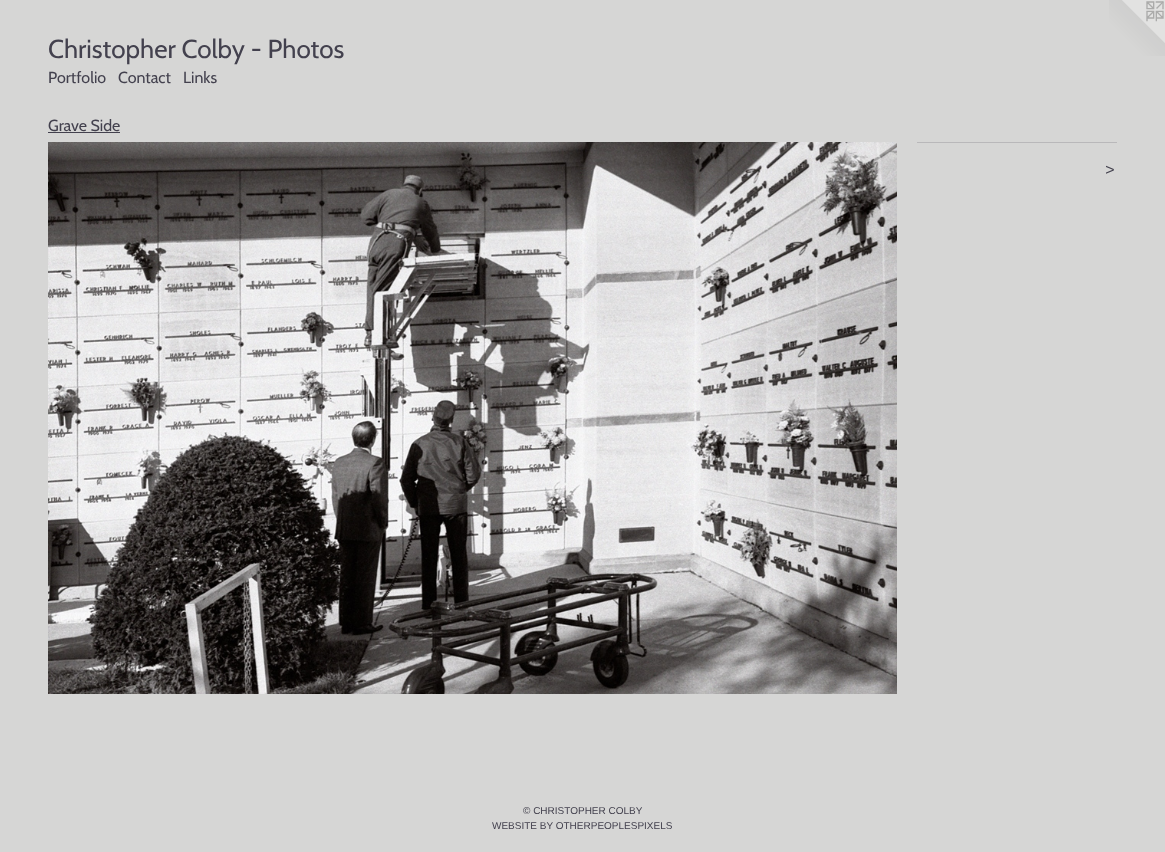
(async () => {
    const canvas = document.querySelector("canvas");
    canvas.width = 1165;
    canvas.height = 852;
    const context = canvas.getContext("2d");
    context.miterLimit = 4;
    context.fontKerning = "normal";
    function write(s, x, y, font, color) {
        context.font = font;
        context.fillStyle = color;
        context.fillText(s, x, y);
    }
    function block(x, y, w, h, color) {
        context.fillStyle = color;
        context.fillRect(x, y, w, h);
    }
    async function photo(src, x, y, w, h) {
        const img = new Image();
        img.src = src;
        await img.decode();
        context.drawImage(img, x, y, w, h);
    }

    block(0, 0, 1165, 852, "rgb(214, 214, 213)");
    write("Christopher Colby - Photos", 48, 58, "26px Cabin", "rgb(67, 65, 78)");
    await photo("media/1.png", 1109, 0, 56, 56);
    write("Portfolio", 48, 83, "16px Cabin", "rgb(67, 65, 78)");
    write("Contact", 118, 83, "16px Cabin", "rgb(67, 65, 78)");
    write("Links", 183, 83, "16px Cabin", "rgb(67, 65, 78)");
    write("Grave Side", 48, 131, "16px Cabin", "rgb(67, 65, 78)");
    block(48, 132, 72, 1, "rgb(67, 65, 78)");
    await photo("media/2.png", 48, 142, 849, 552);
    block(917, 142, 200, 1, "rgb(185, 184, 186)");
    context.letterSpacing = "1px";
    write(">", 1105, 175, "italic 16px Liberation Sans", "rgb(67, 65, 78)");
    context.letterSpacing = "0px";
    write("© CHRISTOPHER COLBY", 523, 814, "10px Liberation Sans", "rgb(67, 65, 78)");
    write("WEBSITE BY OTHERPEOPLESPIXELS", 492, 829, "10px Liberation Sans", "rgb(67, 65, 78)");
})();
